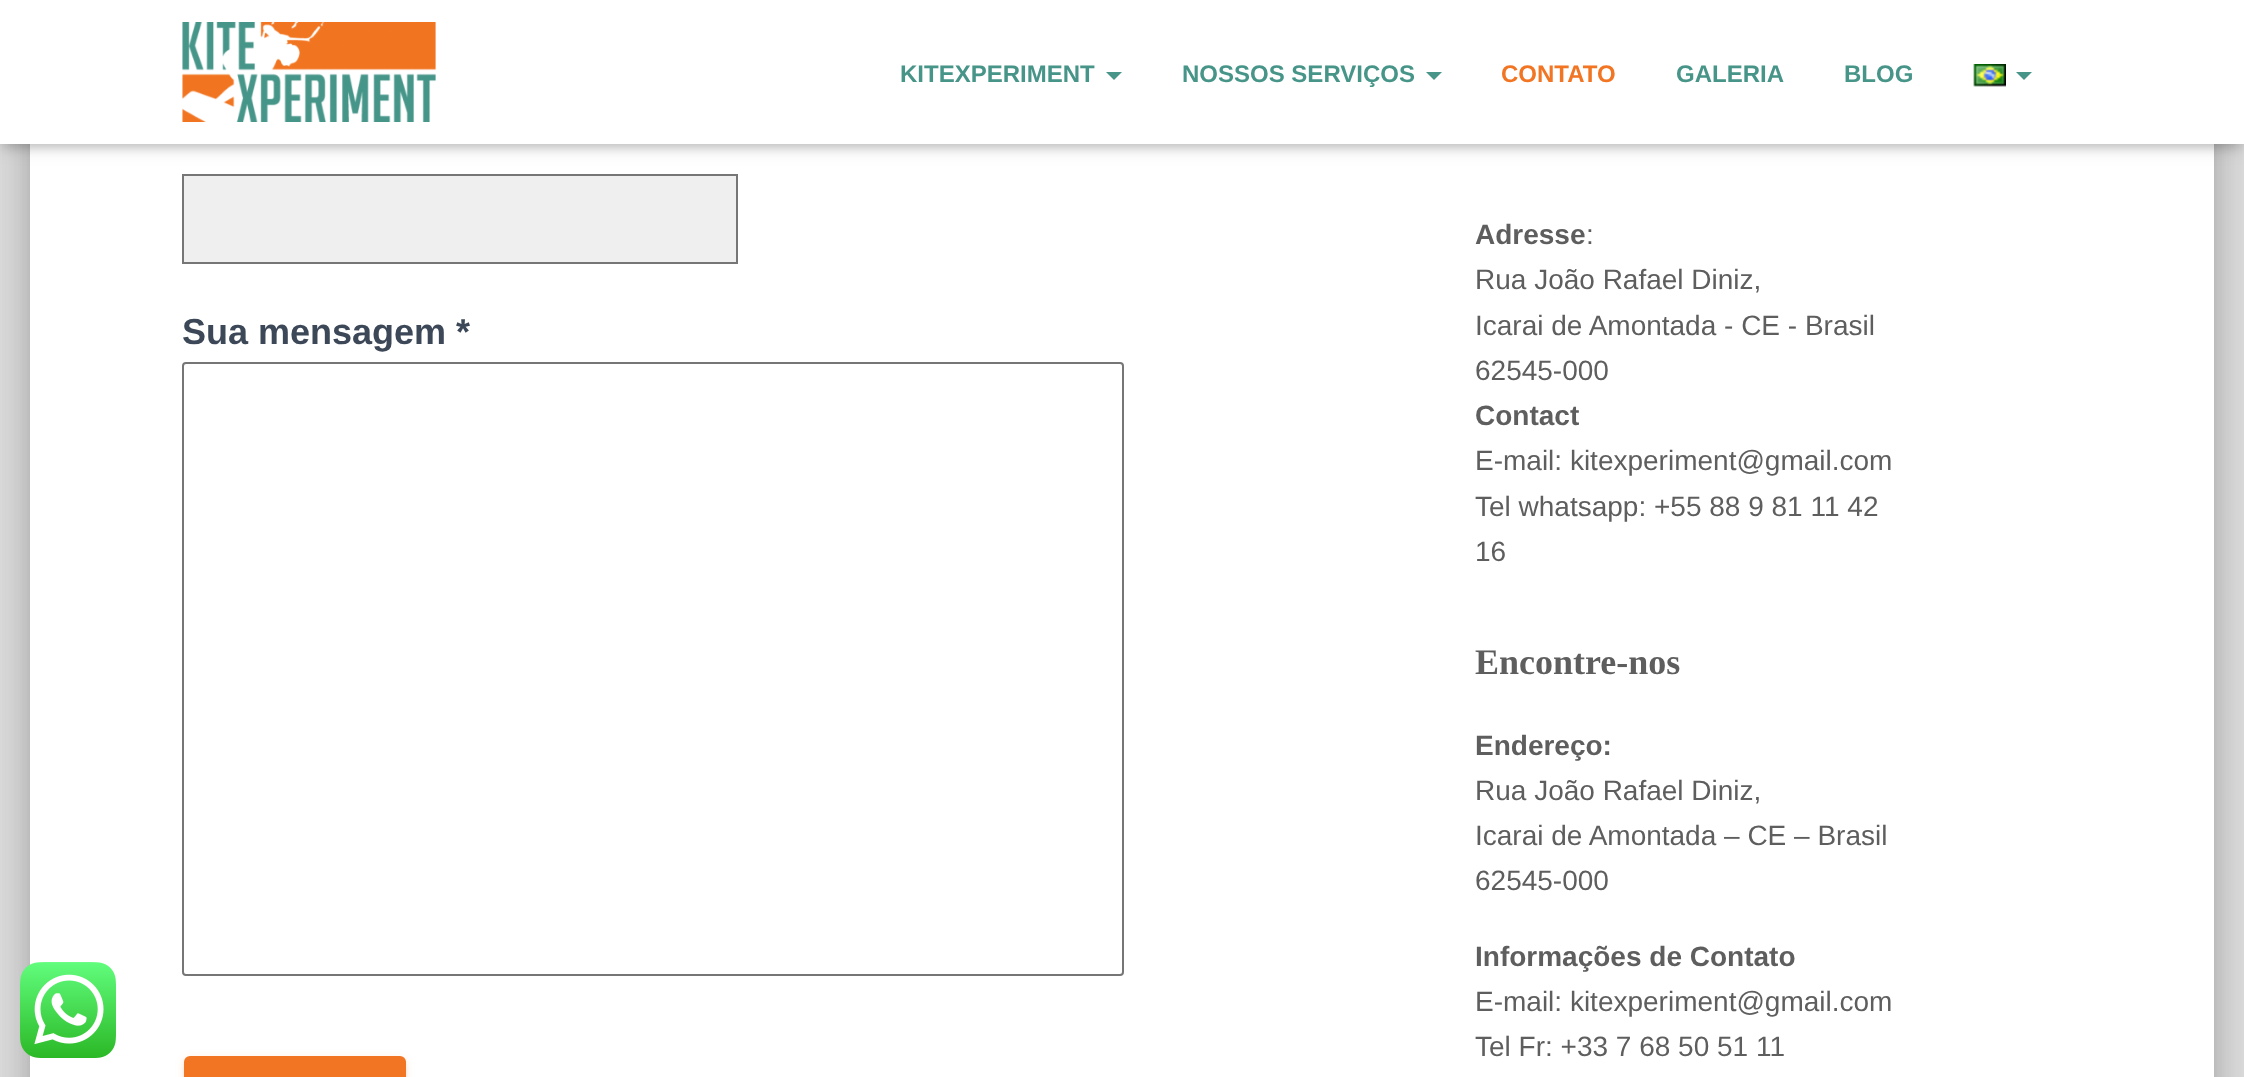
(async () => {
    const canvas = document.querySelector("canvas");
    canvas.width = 2244;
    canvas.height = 1077;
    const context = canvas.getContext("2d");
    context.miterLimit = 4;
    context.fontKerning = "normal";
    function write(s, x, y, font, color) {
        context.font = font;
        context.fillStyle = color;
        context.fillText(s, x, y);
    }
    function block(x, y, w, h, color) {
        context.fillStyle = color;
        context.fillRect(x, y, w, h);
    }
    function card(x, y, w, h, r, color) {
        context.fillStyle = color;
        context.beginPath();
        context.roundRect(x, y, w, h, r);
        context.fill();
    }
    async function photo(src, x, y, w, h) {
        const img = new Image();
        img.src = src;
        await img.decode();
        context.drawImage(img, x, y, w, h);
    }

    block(0, 0, 2244, 1077, "rgb(229, 229, 229)");
    context.fillStyle = "rgba(0, 0, 0, 0.2)";
    context.filter = "blur(10px)";
    context.beginPath();
    context.roundRect(40, -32, 2164, 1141, 2);
    context.fill();
    context.filter = "none";
    context.fillStyle = "rgba(0, 0, 0, 0.12)";
    context.filter = "blur(30px)";
    context.beginPath();
    context.roundRect(20, -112, 2204, 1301, 22);
    context.fill();
    context.filter = "none";
    context.fillStyle = "rgba(0, 0, 0, 0.14)";
    context.filter = "blur(24px)";
    context.beginPath();
    context.roundRect(26, -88, 2192, 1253, 16);
    context.fill();
    context.filter = "none";
    block(30, 144, 2184, 933, "rgb(255, 255, 255)");
    await photo("media/1.png", 20, 962, 96, 96);
    context.fillStyle = "rgba(0, 0, 0, 0.1)";
    context.filter = "blur(5px)";
    context.beginPath();
    context.rect(4, 12, 2236, 136);
    context.fill();
    context.filter = "none";
    context.fillStyle = "rgb(239, 239, 239)";
    context.beginPath();
    context.rect(183, 175, 554, 88);
    context.fill();
    context.strokeStyle = "rgb(118, 118, 118)";
    context.lineWidth = 2;
    context.stroke();
    context.fillStyle = "rgba(0, 0, 0, 0.12)";
    context.filter = "blur(10px)";
    context.beginPath();
    context.rect(0, 2, 2244, 144);
    context.fill();
    context.filter = "none";
    context.fillStyle = "rgba(0, 0, 0, 0.42)";
    context.filter = "blur(10px)";
    context.beginPath();
    context.rect(12, 14, 2220, 120);
    context.fill();
    context.filter = "none";
    block(0, 0, 2244, 144, "rgb(255, 255, 255)");
    await photo("media/2.png", 182, 22, 254, 100);
    write("KITEXPERIMENT", 900, 82, "bold 24px Liberation Sans", "rgb(71, 149, 136)");
    context.beginPath();
    context.moveTo(1106, 72);
    context.lineTo(1122, 72);
    context.lineTo(1114, 80);
    context.closePath();
    context.fill();
    write("NOSSOS SERVIÇOS", 1182, 82, "bold 24px Liberation Sans", "rgb(71, 149, 136)");
    context.beginPath();
    context.moveTo(1426, 72);
    context.lineTo(1442, 72);
    context.lineTo(1434, 80);
    context.closePath();
    context.fill();
    write("CONTATO", 1501, 82, "bold 24px Liberation Sans", "rgb(241, 117, 34)");
    write("GALERIA", 1676, 82, "bold 24px Liberation Sans", "rgb(71, 149, 136)");
    write("BLOG", 1844, 82, "bold 24px Liberation Sans", "rgb(71, 149, 136)");
    await photo("media/3.png", 1973, 64, 33, 23);
    context.beginPath();
    context.moveTo(2016, 72);
    context.lineTo(2032, 72);
    context.lineTo(2024, 80);
    context.closePath();
    context.fill();
    write("Sua mensagem *", 182, 344, "bold 36px Liberation Sans", "rgb(60, 72, 88)");
    context.beginPath();
    context.roundRect(183, 363, 940, 612, 3);
    context.stroke();
    context.fillStyle = "rgba(241, 117, 34, 0.12)";
    context.filter = "blur(5px)";
    context.beginPath();
    context.roundRect(184, 1058, 222, 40, 6);
    context.fill();
    context.filter = "none";
    context.fillStyle = "rgba(241, 117, 34, 0.14)";
    context.filter = "blur(2px)";
    context.beginPath();
    context.roundRect(184, 1060, 222, 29, 6);
    context.fill();
    context.filter = "none";
    card(184, 1056, 222, 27, 6, "rgb(241, 117, 34)");
    write("Adresse", 1475, 244, "bold 28px Liberation Sans", "rgb(94, 94, 94)");
    write(":", 1586, 244, "28px Liberation Sans", "rgb(94, 94, 94)");
    write("Rua João Rafael Diniz,", 1475, 289, "28px Liberation Sans", "rgb(94, 94, 94)");
    write("Icarai de Amontada - CE - Brasil", 1475, 335, "28px Liberation Sans", "rgb(94, 94, 94)");
    write("62545-000", 1475, 380, "28px Liberation Sans", "rgb(94, 94, 94)");
    write("Contact", 1475, 425, "bold 28px Liberation Sans", "rgb(94, 94, 94)");
    write("E-mail: kitexperiment@gmail.com", 1475, 470, "28px Liberation Sans", "rgb(94, 94, 94)");
    write("Tel whatsapp: +55 88 9 81 11 42", 1475, 516, "28px Liberation Sans", "rgb(94, 94, 94)");
    write("16", 1475, 561, "28px Liberation Sans", "rgb(94, 94, 94)");
    write("Encontre-nos", 1475, 674, "bold 36px Liberation Serif", "rgb(94, 94, 94)");
    write("Endereço:", 1475, 755, "bold 28px Liberation Sans", "rgb(94, 94, 94)");
    write("Rua João Rafael Diniz,", 1475, 800, "28px Liberation Sans", "rgb(94, 94, 94)");
    write("Icarai de Amontada – CE – Brasil", 1475, 845, "28px Liberation Sans", "rgb(94, 94, 94)");
    write("62545-000", 1475, 890, "28px Liberation Sans", "rgb(94, 94, 94)");
    write("Informações de Contato", 1475, 966, "bold 28px Liberation Sans", "rgb(94, 94, 94)");
    write("E-mail: kitexperiment@gmail.com", 1475, 1011, "28px Liberation Sans", "rgb(94, 94, 94)");
    write("Tel Fr: +33 7 68 50 51 11", 1475, 1056, "28px Liberation Sans", "rgb(94, 94, 94)");
})();
